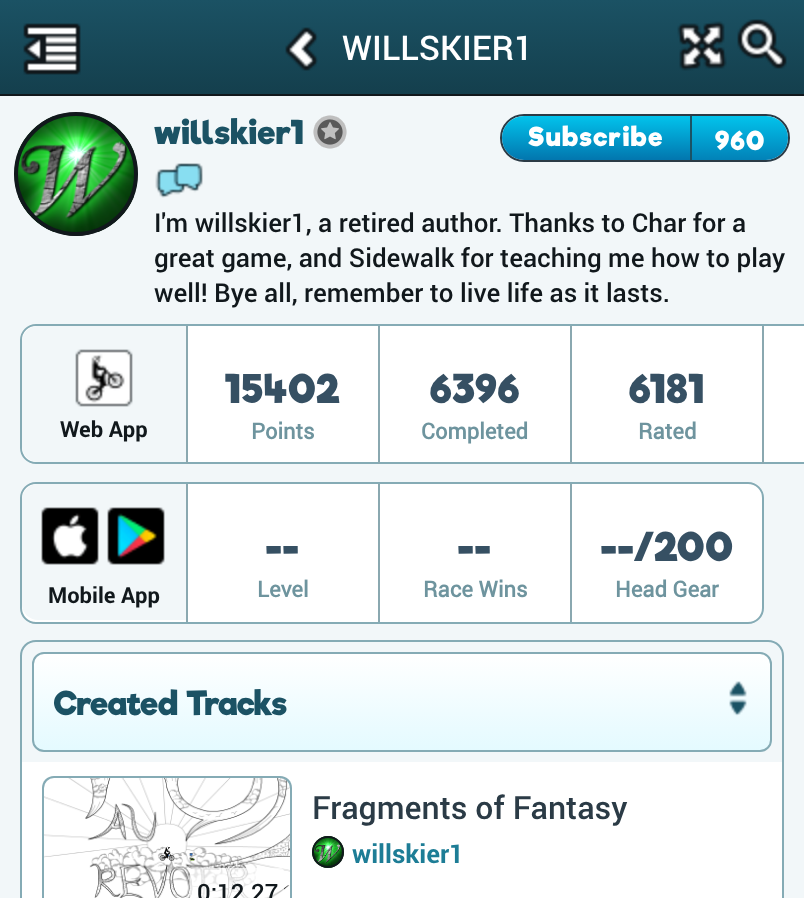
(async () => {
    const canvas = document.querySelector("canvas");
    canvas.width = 804;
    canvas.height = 898;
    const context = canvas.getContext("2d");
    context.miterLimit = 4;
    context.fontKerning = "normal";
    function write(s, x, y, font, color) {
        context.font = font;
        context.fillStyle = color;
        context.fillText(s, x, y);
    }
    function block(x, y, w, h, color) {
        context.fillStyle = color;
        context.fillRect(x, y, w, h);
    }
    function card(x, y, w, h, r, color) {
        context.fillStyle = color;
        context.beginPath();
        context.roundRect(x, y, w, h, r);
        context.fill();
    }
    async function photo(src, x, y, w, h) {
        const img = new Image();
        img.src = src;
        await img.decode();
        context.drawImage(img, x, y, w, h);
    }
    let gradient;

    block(0, 0, 804, 898, "rgb(242, 247, 249)");
    gradient = context.createLinearGradient(402, 0, 402, 94);
    gradient.addColorStop(0, "rgb(27, 82, 100)");
    gradient.addColorStop(1, "rgb(20, 63, 77)");
    context.fillStyle = gradient;
    context.fillRect(0, 0, 804, 94);
    block(0, 94, 804, 2, "rgb(17, 24, 28)");
    await photo("media/1.png", 23, 23, 58, 52);
    await photo("media/2.png", 285, 27, 33, 44);
    write("WILLSKIER1", 342, 60, "500 34px Roboto", "rgb(255, 255, 255)");
    await photo("media/3.png", 677, 21, 50, 50);
    await photo("media/4.png", 737, 19, 50, 50);
    await photo("media/5.png", 14, 112, 124, 124);
    await photo("media/6.png", 18, 116, 116, 116);
    context.beginPath();
    context.arc(76, 174, 60, 0, Math.PI * 2);
    context.strokeStyle = "rgb(17, 24, 28)";
    context.lineWidth = 4;
    context.stroke();
    context.letterSpacing = "1px";
    write("willskier1", 154, 144, "bold 32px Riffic", "rgb(27, 82, 100)");
    await photo("media/7.png", 313, 115, 34, 34);
    context.beginPath();
    context.roundRect(501, 115, 288, 46, 23);
    context.strokeStyle = "rgb(43, 59, 70)";
    context.lineWidth = 2;
    context.stroke();
    gradient = context.createLinearGradient(596, 116, 596, 160);
    gradient.addColorStop(0, "rgb(2, 195, 236)");
    gradient.addColorStop(1, "rgb(2, 118, 174)");
    context.fillStyle = gradient;
    context.beginPath();
    context.roundRect(502, 116, 188, 44, [22, 0, 0, 22]);
    context.fill();
    context.letterSpacing = "2px";
    write("Subscribe", 528, 146, "bold 25.5px Riffic", "rgb(255, 255, 255)");
    gradient = context.createLinearGradient(740, 116, 740, 168);
    gradient.addColorStop(0, "rgb(2, 195, 236)");
    gradient.addColorStop(1, "rgb(2, 118, 174)");
    context.fillStyle = gradient;
    context.beginPath();
    context.roundRect(690, 116, 98, 44, [0, 22, 22, 0]);
    context.fill();
    block(690, 116, 2, 44, "rgb(27, 82, 100)");
    write("960", 715, 150, "bold 25.5px Riffic", "rgb(255, 255, 255)");
    await photo("media/8.png", 155, 163, 48, 35);
    context.letterSpacing = "0px";
    write("I'm willskier1, a retired author. Thanks to Char for a", 154, 232, "500 26px Roboto", "rgb(17, 24, 28)");
    write("great game, and Sidewalk for teaching me how to play", 154, 267, "500 26px Roboto", "rgb(17, 24, 28)");
    write("well! Bye all, remember to live life as it lasts.", 154, 302, "500 26px Roboto", "rgb(17, 24, 28)");
    context.fillStyle = "rgb(255, 255, 255)";
    context.beginPath();
    context.roundRect(20, 324, 784, 140, [16, 0, 0, 16]);
    context.fill();
    context.beginPath();
    context.roundRect(21, 325, 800, 138, 15);
    context.strokeStyle = "rgb(133, 171, 181)";
    context.stroke();
    context.fillStyle = "rgb(242, 247, 249)";
    context.beginPath();
    context.roundRect(22, 326, 164, 136, [16, 0, 0, 16]);
    context.fill();
    await photo("media/9.png", 75, 349, 58, 58);
    write("Web App", 60, 437, "bold 22px Roboto", "rgb(17, 24, 28)");
    block(186, 326, 2, 138, "rgb(138, 168, 176)");
    context.letterSpacing = "2px";
    write("15402", 225, 403, "bold 38.5px Riffic", "rgb(54, 80, 99)");
    context.letterSpacing = "0px";
    write("Points", 251, 439, "bold 22px 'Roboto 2'", "rgb(110, 148, 158)");
    block(378, 326, 2, 138, "rgb(138, 168, 176)");
    context.letterSpacing = "2px";
    write("6396", 430, 403, "bold 38.5px Riffic", "rgb(54, 80, 99)");
    context.letterSpacing = "0px";
    write("Completed", 421, 439, "bold 22px 'Roboto 2'", "rgb(110, 148, 158)");
    block(570, 326, 2, 138, "rgb(138, 168, 176)");
    context.letterSpacing = "2px";
    write("6181", 629, 403, "bold 38.5px Riffic", "rgb(54, 80, 99)");
    context.letterSpacing = "0px";
    write("Rated", 638, 439, "bold 22px 'Roboto 2'", "rgb(110, 148, 158)");
    block(762, 326, 2, 138, "rgb(138, 168, 176)");
    context.fillStyle = "rgb(255, 255, 255)";
    context.beginPath();
    context.roundRect(21, 483, 742, 140, 15);
    context.fill();
    context.stroke();
    context.fillStyle = "rgb(242, 247, 249)";
    context.beginPath();
    context.roundRect(22, 484, 164, 136, [16, 0, 0, 16]);
    context.fill();
    await photo("media/10.png", 41, 507, 58, 58);
    await photo("media/11.png", 107, 507, 58, 58);
    write("Mobile App", 48, 603, "bold 22px Roboto", "rgb(17, 24, 28)");
    block(186, 484, 2, 138, "rgb(138, 168, 176)");
    context.letterSpacing = "2px";
    write("--", 266, 561, "bold 38.5px Riffic", "rgb(54, 80, 99)");
    context.letterSpacing = "0px";
    write("Level", 257, 597, "bold 22px 'Roboto 2'", "rgb(110, 148, 158)");
    block(378, 484, 2, 138, "rgb(138, 168, 176)");
    context.letterSpacing = "2px";
    write("--", 458, 561, "bold 38.5px Riffic", "rgb(54, 80, 99)");
    context.letterSpacing = "0px";
    write("Race Wins", 423, 597, "bold 22px 'Roboto 2'", "rgb(110, 148, 158)");
    block(570, 484, 2, 138, "rgb(138, 168, 176)");
    context.letterSpacing = "2px";
    write("--/200", 601, 561, "bold 38.5px Riffic", "rgb(54, 80, 99)");
    context.letterSpacing = "0px";
    write("Head Gear", 615, 597, "bold 22px 'Roboto 2'", "rgb(110, 148, 158)");
    context.beginPath();
    context.moveTo(36, 641);
    context.lineTo(768, 641);
    context.bezierCurveTo(776.5, 641, 783, 647.5, 783, 656);
    context.lineTo(783, 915);
    context.lineTo(36, 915);
    context.bezierCurveTo(27.5, 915, 21, 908.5, 21, 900);
    context.lineTo(21, 656);
    context.bezierCurveTo(21, 647.5, 27.5, 641, 36, 641);
    context.closePath();
    context.stroke();
    context.save();
    context.beginPath();
    context.roundRect(32, 652, 740, 100, 12);
    context.clip();
    gradient = context.createLinearGradient(402, 654, 402, 750);
    gradient.addColorStop(0, "rgb(255, 255, 255)");
    gradient.addColorStop(1, "rgb(228, 250, 255)");
    context.fillStyle = gradient;
    context.fillRect(32, 654, 740, 96);
    context.restore();
    context.beginPath();
    context.roundRect(33, 653, 738, 98, 11);
    context.stroke();
    write("Created Tracks", 54, 715, "bold 32px Riffic", "rgb(27, 82, 100)");
    await photo("media/12.png", 729, 681, 18, 35);
    block(22, 762, 760, 136, "rgb(255, 255, 255)");
    write("Fragments of Fantasy", 312, 819, "500 32px Roboto", "rgb(43, 59, 70)");
    await photo("media/13.png", 312, 836, 32, 32);
    context.beginPath();
    context.arc(328, 852, 15, 0, Math.PI * 2);
    context.strokeStyle = "rgb(17, 24, 28)";
    context.stroke();
    write("willskier1", 352, 863, "bold 26px Roboto", "rgb(29, 125, 150)");
    context.fillStyle = "rgb(133, 171, 181)";
    context.beginPath();
    context.moveTo(54, 776);
    context.lineTo(280, 776);
    context.bezierCurveTo(287, 776, 292, 781, 292, 788);
    context.lineTo(292, 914);
    context.bezierCurveTo(292, 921, 287, 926, 280, 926);
    context.lineTo(54, 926);
    context.bezierCurveTo(47, 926, 42, 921, 42, 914);
    context.lineTo(42, 788);
    context.bezierCurveTo(42, 781, 47, 776, 54, 776);
    context.closePath();
    context.fill();
    await photo("media/14.png", 44, 778, 246, 120);
    card(190, 868, 94, 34, 4, "rgba(255, 255, 255, 0.7)");
    write("0:12.27", 197, 901, "500 24px Roboto", "rgb(17, 24, 28)");
})();
